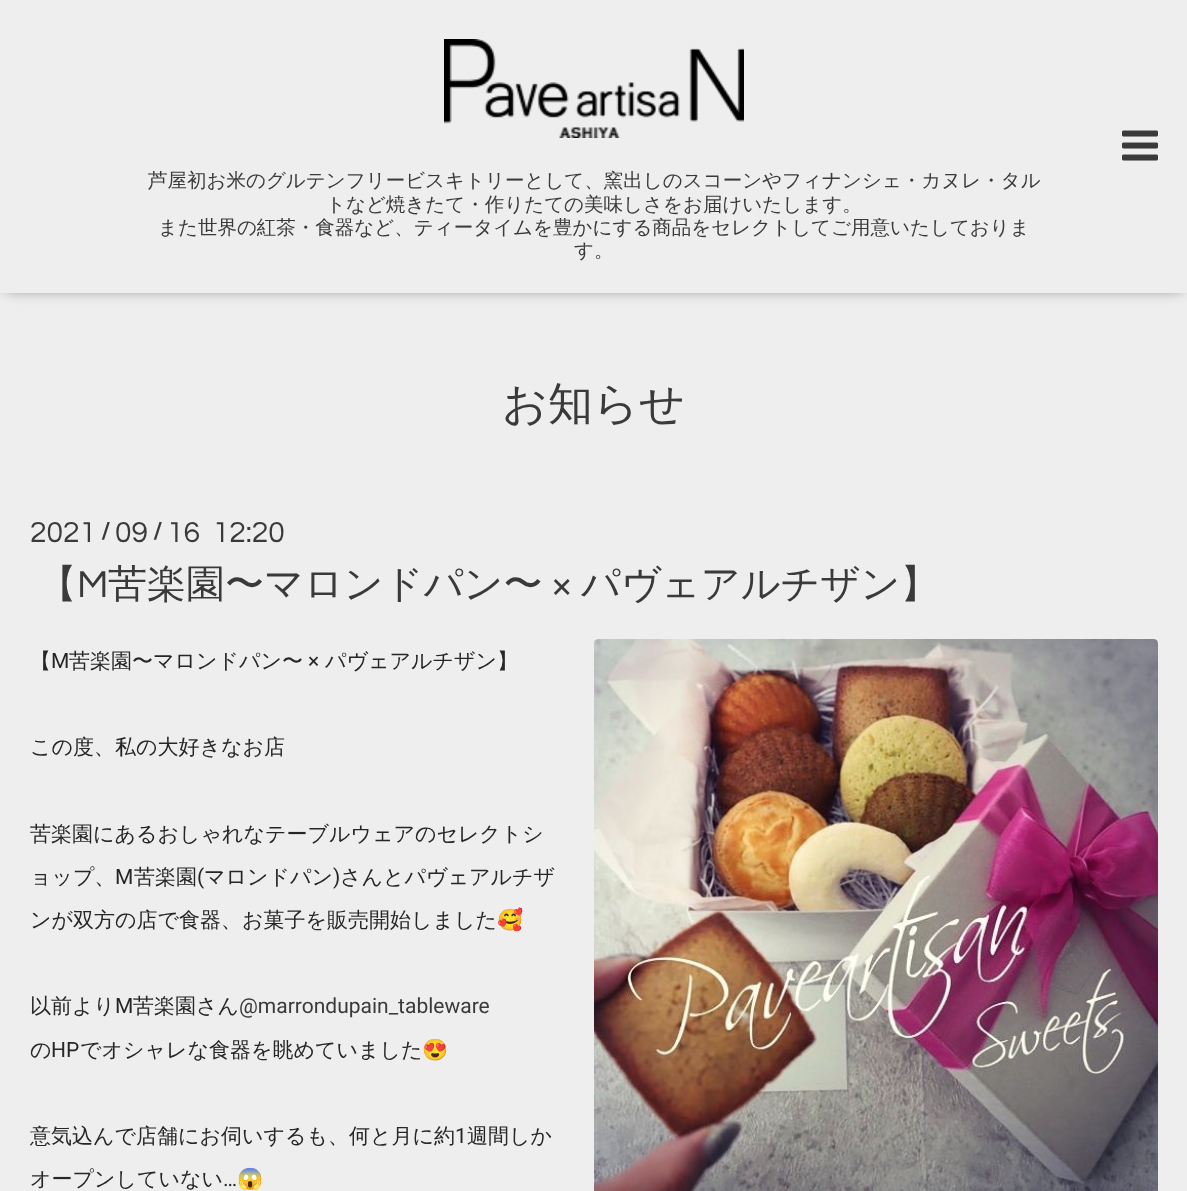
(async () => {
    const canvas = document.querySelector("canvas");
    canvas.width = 1187;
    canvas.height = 1191;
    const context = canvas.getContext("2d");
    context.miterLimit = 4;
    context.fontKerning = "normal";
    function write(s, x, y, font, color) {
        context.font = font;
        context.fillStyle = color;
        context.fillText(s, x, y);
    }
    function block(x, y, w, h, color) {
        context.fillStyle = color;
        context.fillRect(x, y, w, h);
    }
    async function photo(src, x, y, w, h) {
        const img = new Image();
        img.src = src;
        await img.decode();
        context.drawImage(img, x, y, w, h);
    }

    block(0, 0, 1187, 1191, "rgb(238, 238, 238)");
    context.fillStyle = "rgba(0, 0, 0, 0.6)";
    context.filter = "blur(7.5px)";
    context.beginPath();
    context.rect(6, 8, 1176, 280);
    context.fill();
    context.filter = "none";
    block(0, 0, 1187, 293, "rgb(238, 238, 238)");
    await photo("media/1.png", 1122, 130, 36, 31);
    await photo("media/2.png", 444, 39, 300, 99);
    write("芦屋初お米のグルテンフリービスキトリーとして、窯出しのスコーンやフィナンシェ・カヌレ・タル", 148, 187, "500 19.5px WenQuanYi Zen Hei", "rgb(58, 58, 58)");
    write("トなど焼きたて・作りたての美味しさをお届けいたします。", 326, 211, "500 19.5px WenQuanYi Zen Hei", "rgb(58, 58, 58)");
    write("また世界の紅茶・食器など、ティータイムを豊かにする商品をセレクトしてご用意いたしておりま", 158, 234, "500 19.5px WenQuanYi Zen Hei", "rgb(58, 58, 58)");
    write("す。", 574, 257, "500 19.5px WenQuanYi Zen Hei", "rgb(58, 58, 58)");
    write("お知らせ", 502, 419, "500 45px WenQuanYi Zen Hei", "rgb(58, 58, 58)");
    write("2021", 30, 542, "30px Questrial", "rgb(58, 58, 58)");
    write("/", 101, 539, "bold 24px Questrial", "rgb(58, 58, 58)");
    write("09", 115, 542, "30px Questrial", "rgb(58, 58, 58)");
    write("/", 153, 539, "bold 24px Questrial", "rgb(58, 58, 58)");
    write("16  12:20", 167, 542, "30px Questrial", "rgb(58, 58, 58)");
    write("【", 38, 597, "500 39px WenQuanYi Zen Hei", "rgb(58, 58, 58)");
    write("M", 77, 597, "39px Questrial", "rgb(58, 58, 58)");
    write("苦楽園〜マロンドパン〜", 108, 597, "500 39px WenQuanYi Zen Hei", "rgb(58, 58, 58)");
    write("×", 551, 597, "39px Questrial", "rgb(58, 58, 58)");
    write("パヴェアルチザン】", 581, 597, "500 39px WenQuanYi Zen Hei", "rgb(58, 58, 58)");
    write("【", 30, 668, "500 21px WenQuanYi Zen Hei", "rgb(38, 38, 38)");
    write("M", 51, 668, "21px Roboto", "rgb(38, 38, 38)");
    write("苦楽園〜マロンドパン〜", 69, 668, "500 21px WenQuanYi Zen Hei", "rgb(38, 38, 38)");
    write("×", 308, 668, "21px Roboto", "rgb(38, 38, 38)");
    write("パヴェアルチザン】", 325, 668, "500 21px WenQuanYi Zen Hei", "rgb(38, 38, 38)");
    write("この度、私の大好きなお店", 30, 754, "500 21px WenQuanYi Zen Hei", "rgb(38, 38, 38)");
    write("苦楽園にあるおしゃれなテーブルウェアのセレクトシ", 30, 841, "500 21px WenQuanYi Zen Hei", "rgb(38, 38, 38)");
    write("ョップ、", 30, 884, "500 21px WenQuanYi Zen Hei", "rgb(38, 38, 38)");
    write("M", 115, 884, "21px Roboto", "rgb(38, 38, 38)");
    write("苦楽園", 134, 884, "500 21px WenQuanYi Zen Hei", "rgb(38, 38, 38)");
    write("(", 197, 884, "21px Roboto", "rgb(38, 38, 38)");
    write("マロンドパン", 204, 884, "500 21px WenQuanYi Zen Hei", "rgb(38, 38, 38)");
    write(")", 333, 884, "21px Roboto", "rgb(38, 38, 38)");
    write("さんとパヴェアルチザ", 340, 884, "500 21px WenQuanYi Zen Hei", "rgb(38, 38, 38)");
    write("ンが双方の店で食器、お菓子を販売開始しました", 30, 927, "500 21px WenQuanYi Zen Hei", "rgb(38, 38, 38)");
    write("🥰", 497, 927, "21px Noto Color Emoji", "rgb(38, 38, 38)");
    write("以前より", 30, 1013, "500 21px WenQuanYi Zen Hei", "rgb(38, 38, 38)");
    write("M", 115, 1013, "21px Roboto", "rgb(38, 38, 38)");
    write("苦楽園さん", 133, 1013, "500 21px WenQuanYi Zen Hei", "rgb(38, 38, 38)");
    write("@marrondupain_tableware", 239, 1013, "21px Roboto", "rgb(58, 58, 58)");
    write("の", 30, 1057, "500 21px WenQuanYi Zen Hei", "rgb(38, 38, 38)");
    write("HP", 51, 1057, "21px Roboto", "rgb(38, 38, 38)");
    write("でオシャレな食器を眺めていました", 80, 1057, "500 21px WenQuanYi Zen Hei", "rgb(38, 38, 38)");
    write("😍", 422, 1057, "21px Noto Color Emoji", "rgb(38, 38, 38)");
    write("意気込んで店舗にお伺いするも、何と月に約", 30, 1143, "500 21px WenQuanYi Zen Hei", "rgb(38, 38, 38)");
    write("1", 455, 1143, "21px Roboto", "rgb(38, 38, 38)");
    write("週間しか", 467, 1143, "500 21px WenQuanYi Zen Hei", "rgb(38, 38, 38)");
    write("オープンしていない", 30, 1186, "500 21px WenQuanYi Zen Hei", "rgb(38, 38, 38)");
    write("…", 223, 1186, "21px Roboto", "rgb(38, 38, 38)");
    write("😱", 237, 1186, "21px Noto Color Emoji", "rgb(38, 38, 38)");
    await photo("media/3.png", 594, 639, 564, 552);
})();
